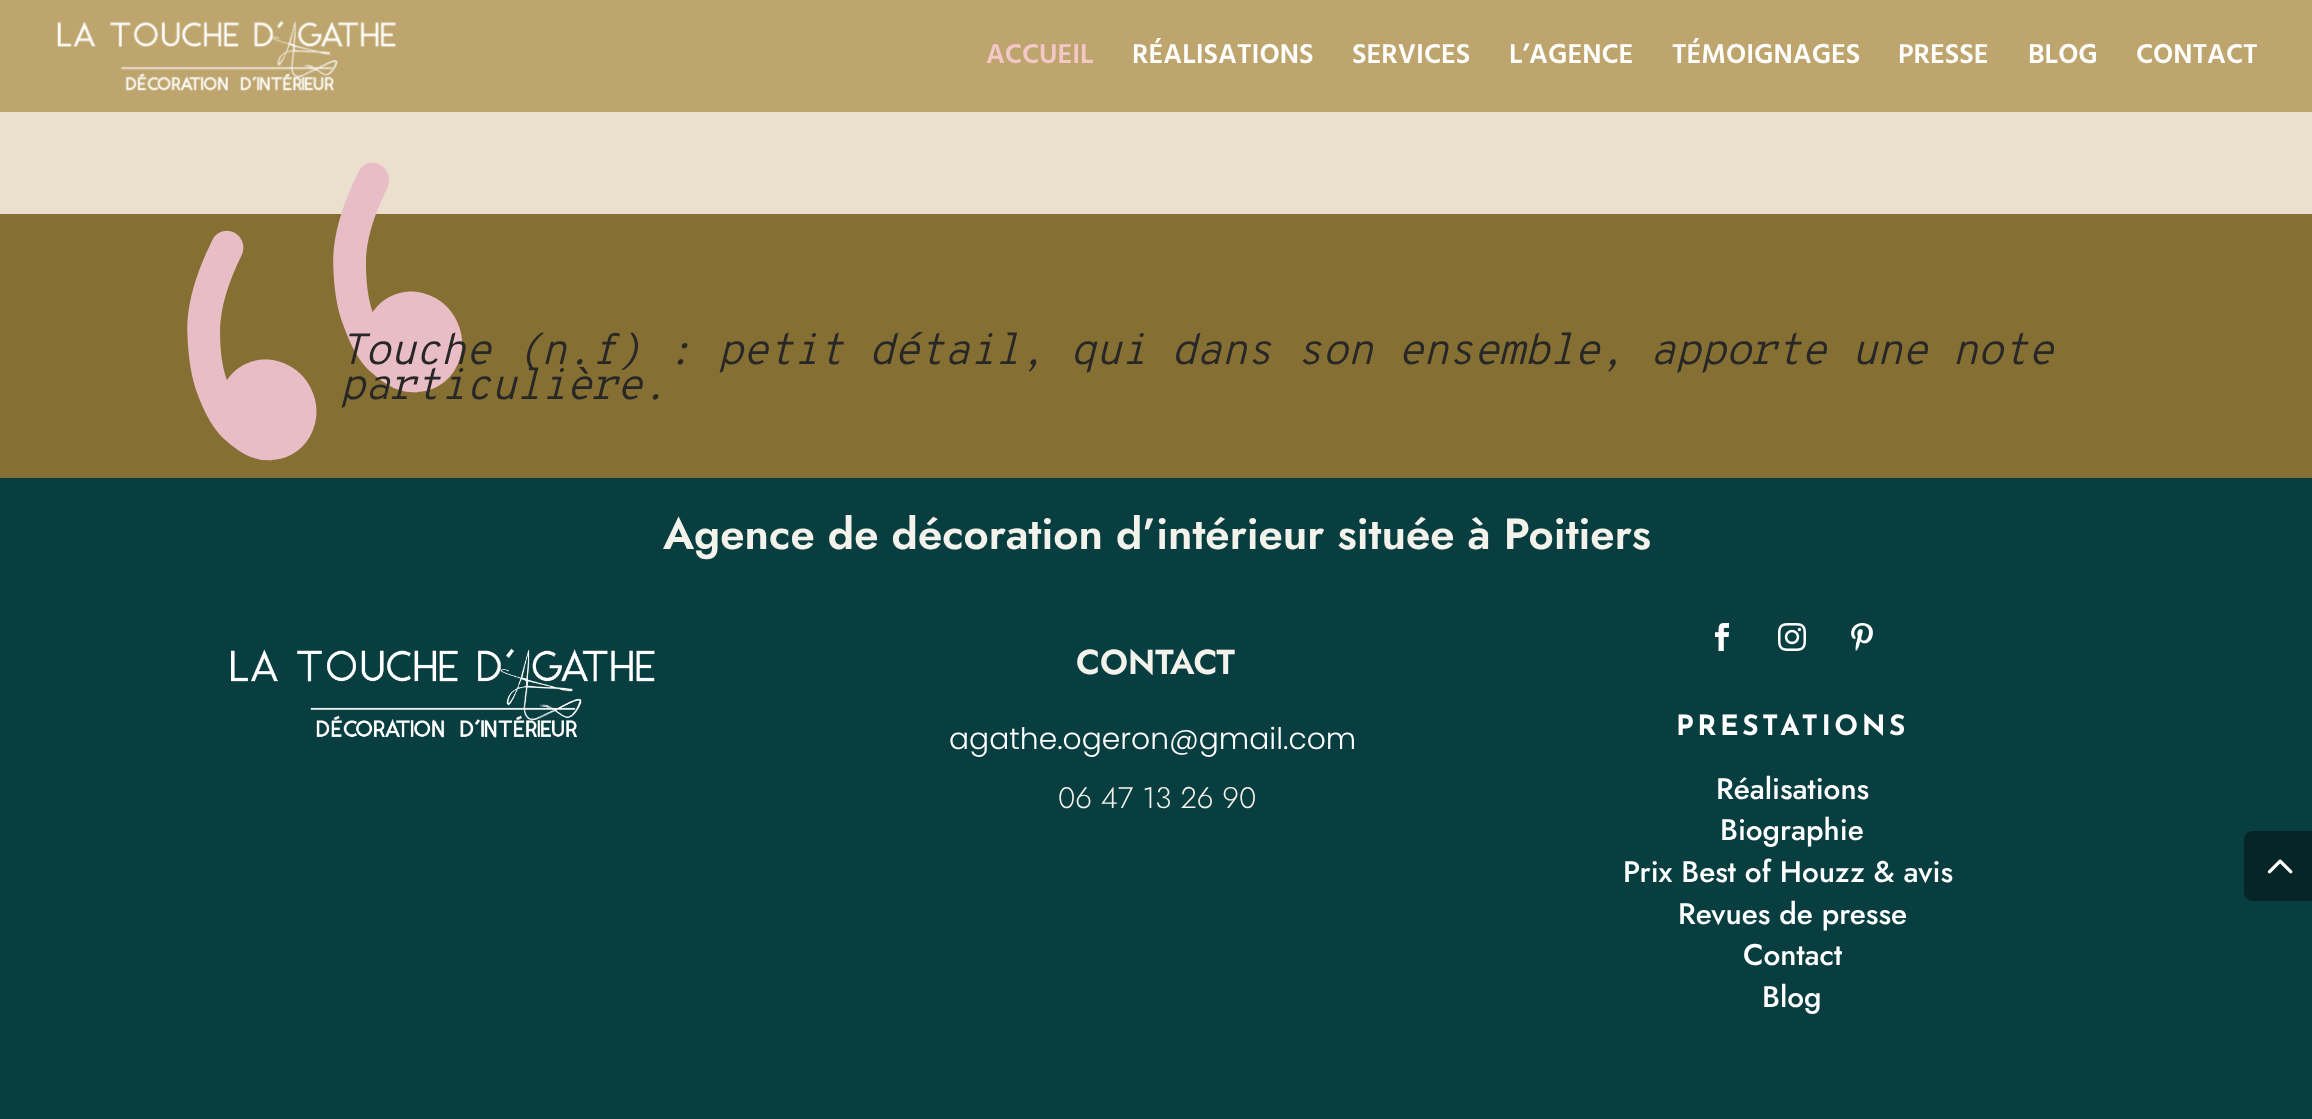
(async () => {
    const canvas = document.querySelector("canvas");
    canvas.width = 2312;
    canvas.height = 1119;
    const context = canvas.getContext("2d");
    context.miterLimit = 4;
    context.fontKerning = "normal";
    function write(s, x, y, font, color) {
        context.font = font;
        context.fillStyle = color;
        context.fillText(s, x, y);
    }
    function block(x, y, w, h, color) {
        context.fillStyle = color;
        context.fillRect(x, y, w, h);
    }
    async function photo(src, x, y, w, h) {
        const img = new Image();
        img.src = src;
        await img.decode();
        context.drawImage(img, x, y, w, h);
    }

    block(0, 0, 2312, 1119, "rgb(235, 224, 206)");
    block(0, 0, 2312, 112, "rgb(189, 165, 109)");
    await photo("media/1.png", 57, 20, 339, 72);
    write("ACCUEIL", 986, 63, "600 28px Hind", "rgb(244, 200, 200)");
    write("RÉALISATIONS", 1132, 63, "600 28px Hind", "rgb(255, 255, 255)");
    write("SERVICES", 1352, 63, "600 28px Hind", "rgb(255, 255, 255)");
    write("L’AGENCE", 1509, 63, "600 28px Hind", "rgb(255, 255, 255)");
    write("TÉMOIGNAGES", 1672, 63, "600 28px Hind", "rgb(255, 255, 255)");
    write("PRESSE", 1898, 63, "600 28px Hind", "rgb(255, 255, 255)");
    write("BLOG", 2028, 63, "600 28px Hind", "rgb(255, 255, 255)");
    write("CONTACT", 2136, 63, "600 28px Hind", "rgb(255, 255, 255)");
    block(0, 214, 2312, 264, "rgb(134, 111, 50)");
    await photo("media/2.png", 187, 162, 276, 299);
    context.letterSpacing = "-1.75px";
    write("Touche (n.f) : petit détail, qui dans son ensemble, apporte une note", 339, 364, "italic 300 43.75px Overpass Mono", "rgb(39, 39, 39)");
    write("particulière.", 339, 399, "italic 300 43.75px Overpass Mono", "rgb(39, 39, 39)");
    block(0, 478, 2312, 641, "rgb(9, 62, 64)");
    context.letterSpacing = "0px";
    write("Agence de décoration d’intérieur située à Poitiers", 663, 549, "600 43.75px Jost", "rgb(244, 243, 235)");
    await photo("media/3.png", 231, 648, 424, 90);
    write("CONTACT", 1076, 674, "600 34.5px Jost", "rgb(244, 243, 235)");
    write("agathe.ogeron@gmail.com", 949, 749, "300 29.75px Poppins", "rgb(255, 255, 255)");
    write("06 47 13 26 90", 1058, 808, "300 29.75px Jost", "rgb(244, 243, 235)");
    await photo("media/4.png", 1715, 623, 15, 28);
    await photo("media/5.png", 1778, 623, 28, 28);
    await photo("media/6.png", 1851, 623, 22, 28);
    context.letterSpacing = "3.5px";
    write("PRESTATIONS", 1676, 735, "bold 28px Josefin Sans", "rgb(255, 255, 255)");
    context.letterSpacing = "0px";
    write("Réalisations", 1716, 799, "500 29.75px Jost", "rgb(255, 255, 255)");
    write("Biographie", 1720, 840, "500 29.75px Jost", "rgb(255, 255, 255)");
    write("Prix Best of Houzz & avis", 1623, 882, "500 29.75px Jost", "rgb(255, 255, 255)");
    write("Revues de presse", 1678, 924, "500 29.75px Jost", "rgb(255, 255, 255)");
    write("Contact", 1743, 965, "500 29.75px Jost", "rgb(255, 255, 255)");
    write("Blog", 1762, 1007, "500 29.75px Jost", "rgb(255, 255, 255)");
    context.fillStyle = "rgb(5, 37, 38)";
    context.beginPath();
    context.moveTo(2253, 831);
    context.lineTo(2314, 831);
    context.lineTo(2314, 901);
    context.lineTo(2253, 901);
    context.bezierCurveTo(2248, 901, 2244, 897, 2244, 892);
    context.lineTo(2244, 840);
    context.bezierCurveTo(2244, 835, 2248, 831, 2253, 831);
    context.closePath();
    context.fill();
    await photo("media/7.png", 2267, 859, 26, 15);
})();
